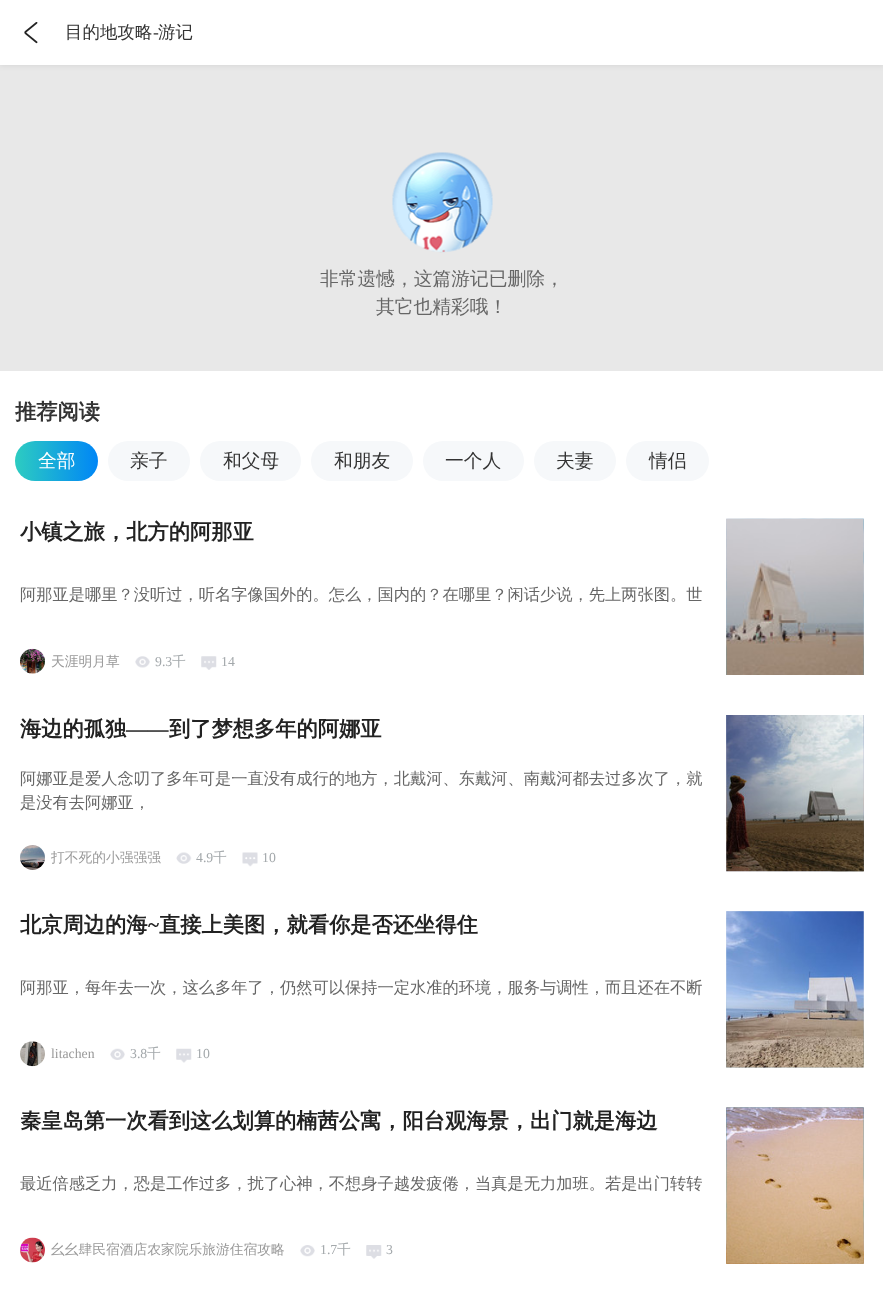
(async () => {
    const canvas = document.querySelector("canvas");
    canvas.width = 883;
    canvas.height = 1295;
    const context = canvas.getContext("2d");
    context.miterLimit = 4;
    context.fontKerning = "normal";
    function write(s, x, y, font, color) {
        context.font = font;
        context.fillStyle = color;
        context.fillText(s, x, y);
    }
    function block(x, y, w, h, color) {
        context.fillStyle = color;
        context.fillRect(x, y, w, h);
    }
    function card(x, y, w, h, r, color) {
        context.fillStyle = color;
        context.beginPath();
        context.roundRect(x, y, w, h, r);
        context.fill();
    }
    async function photo(src, x, y, w, h) {
        const img = new Image();
        img.src = src;
        await img.decode();
        context.drawImage(img, x, y, w, h);
    }
    let gradient;

    block(0, 0, 883, 1295, "rgb(232, 232, 232)");
    context.fillStyle = "rgba(0, 0, 0, 0.09)";
    context.filter = "blur(3px)";
    context.beginPath();
    context.rect(0, 0, 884, 65);
    context.fill();
    context.filter = "none";
    block(0, 0, 883, 65, "rgb(255, 255, 255)");
    await photo("media/1.png", 24, 22, 14, 22);
    write("目的地攻略", 65, 38, "500 17.5px WenQuanYi Zen Hei", "rgb(51, 51, 51)");
    write("-", 153, 38, "17.5px Liberation Serif", "rgb(51, 51, 51)");
    write("游记", 158, 38, "500 17.5px WenQuanYi Zen Hei", "rgb(51, 51, 51)");
    await photo("media/2.png", 392, 152, 101, 101);
    write("非常遗憾，这篇游记已删除，", 320, 285, "500 18.75px WenQuanYi Zen Hei", "rgb(102, 102, 102)");
    write("其它也精彩哦！", 376, 313, "500 18.75px WenQuanYi Zen Hei", "rgb(102, 102, 102)");
    block(0, 371, 883, 924, "rgb(255, 255, 255)");
    write("推荐阅读", 15, 419, "bold 21.25px WenQuanYi Zen Hei", "rgb(51, 51, 51)");
    gradient = context.createLinearGradient(98, 461, 15, 461);
    gradient.addColorStop(0, "rgb(0, 134, 246)");
    gradient.addColorStop(1, "rgb(45, 204, 193)");
    context.fillStyle = gradient;
    context.beginPath();
    context.roundRect(15, 441, 83, 40, 20);
    context.fill();
    write("全部", 38, 467, "500 18.75px WenQuanYi Zen Hei", "rgb(255, 255, 255)");
    card(108, 441, 82, 40, 20, "rgb(246, 248, 250)");
    write("亲子", 130, 467, "500 18.75px WenQuanYi Zen Hei", "rgb(51, 51, 51)");
    card(200, 441, 101, 40, 20, "rgb(246, 248, 250)");
    write("和父母", 223, 467, "500 18.75px WenQuanYi Zen Hei", "rgb(51, 51, 51)");
    card(311, 441, 102, 40, 20, "rgb(246, 248, 250)");
    write("和朋友", 334, 467, "500 18.75px WenQuanYi Zen Hei", "rgb(51, 51, 51)");
    card(423, 441, 101, 40, 20, "rgb(246, 248, 250)");
    write("一个人", 445, 467, "500 18.75px WenQuanYi Zen Hei", "rgb(51, 51, 51)");
    card(534, 441, 82, 40, 20, "rgb(246, 248, 250)");
    write("夫妻", 556, 467, "500 18.75px WenQuanYi Zen Hei", "rgb(51, 51, 51)");
    card(626, 441, 83, 40, 20, "rgb(246, 248, 250)");
    write("情侣", 649, 467, "500 18.75px WenQuanYi Zen Hei", "rgb(51, 51, 51)");
    write("小镇之旅，北方的阿那亚", 20, 539, "bold 21.25px WenQuanYi Zen Hei", "rgb(34, 34, 34)");
    write("阿那亚是哪里？没听过，听名字像国外的。怎么，国内的？在哪里？闲话少说，先上两张图。世", 20, 600, "500 16.25px WenQuanYi Zen Hei", "rgb(102, 102, 102)");
    await photo("media/3.png", 20, 648, 25, 26);
    write("天涯明月草", 51, 666, "500 13.75px WenQuanYi Zen Hei", "rgb(153, 153, 153)");
    await photo("media/4.png", 135, 656, 15, 12);
    write("9.3", 155, 666, "13.75px Liberation Serif", "rgb(163, 168, 171)");
    write("千", 172, 666, "500 13.75px WenQuanYi Zen Hei", "rgb(163, 168, 171)");
    await photo("media/5.png", 201, 656, 16, 14);
    write("14", 221, 666, "13.75px Liberation Serif", "rgb(163, 168, 171)");
    await photo("media/6.png", 726, 518, 138, 157);
    await photo("media/7.png", 726, 518, 138, 157);
    write("海边的孤独", 20, 736, "bold 21.25px WenQuanYi Zen Hei", "rgb(34, 34, 34)");
    write("——", 126, 736, "bold 21.25px Liberation Serif", "rgb(34, 34, 34)");
    write("到了梦想多年的阿娜亚", 169, 736, "bold 21.25px WenQuanYi Zen Hei", "rgb(34, 34, 34)");
    write("阿娜亚是爱人念叨了多年可是一直没有成行的地方，北戴河、东戴河、南戴河都去过多次了，就", 20, 784, "500 16.25px WenQuanYi Zen Hei", "rgb(102, 102, 102)");
    write("是没有去阿娜亚，", 20, 808, "500 16.25px WenQuanYi Zen Hei", "rgb(102, 102, 102)");
    await photo("media/8.png", 20, 845, 25, 25);
    write("打不死的小强强强", 51, 862, "500 13.75px WenQuanYi Zen Hei", "rgb(153, 153, 153)");
    await photo("media/9.png", 176, 852, 16, 12);
    write("4.9", 196, 862, "13.75px Liberation Serif", "rgb(163, 168, 171)");
    write("千", 213, 862, "500 13.75px WenQuanYi Zen Hei", "rgb(163, 168, 171)");
    await photo("media/10.png", 242, 852, 16, 15);
    write("10", 262, 862, "13.75px Liberation Serif", "rgb(163, 168, 171)");
    await photo("media/11.png", 726, 715, 138, 157);
    await photo("media/12.png", 726, 715, 138, 157);
    write("北京周边的海", 20, 932, "bold 21.25px WenQuanYi Zen Hei", "rgb(34, 34, 34)");
    write("~", 148, 932, "bold 21.25px Liberation Serif", "rgb(34, 34, 34)");
    write("直接上美图，就看你是否还坐得住", 159, 932, "bold 21.25px WenQuanYi Zen Hei", "rgb(34, 34, 34)");
    write("阿那亚，每年去一次，这么多年了，仍然可以保持一定水准的环境，服务与调性，而且还在不断", 20, 993, "500 16.25px WenQuanYi Zen Hei", "rgb(102, 102, 102)");
    await photo("media/13.png", 20, 1041, 25, 26);
    write("litachen", 51, 1058, "13.75px Liberation Serif", "rgb(153, 153, 153)");
    await photo("media/14.png", 110, 1048, 15, 12);
    write("3.8", 130, 1058, "13.75px Liberation Serif", "rgb(163, 168, 171)");
    write("千", 147, 1058, "500 13.75px WenQuanYi Zen Hei", "rgb(163, 168, 171)");
    await photo("media/15.png", 176, 1048, 16, 15);
    write("10", 196, 1058, "13.75px Liberation Serif", "rgb(163, 168, 171)");
    await photo("media/16.png", 726, 911, 138, 157);
    await photo("media/17.png", 726, 911, 138, 157);
    write("秦皇岛第一次看到这么划算的楠茜公寓，阳台观海景，出门就是海边", 20, 1128, "bold 21.25px WenQuanYi Zen Hei", "rgb(34, 34, 34)");
    write("最近倍感乏力，恐是工作过多，扰了心神，不想身子越发疲倦，当真是无力加班。若是出门转转", 20, 1189, "500 16.25px WenQuanYi Zen Hei", "rgb(102, 102, 102)");
    await photo("media/18.png", 20, 1237, 25, 26);
    write("幺幺肆民宿酒店农家院乐旅游住宿攻略", 51, 1254, "500 13.75px WenQuanYi Zen Hei", "rgb(153, 153, 153)");
    await photo("media/19.png", 300, 1245, 15, 12);
    write("1.7", 320, 1254, "13.75px Liberation Serif", "rgb(163, 168, 171)");
    write("千", 337, 1254, "500 13.75px WenQuanYi Zen Hei", "rgb(163, 168, 171)");
    await photo("media/20.png", 366, 1245, 16, 14);
    write("3", 386, 1254, "13.75px Liberation Serif", "rgb(163, 168, 171)");
    await photo("media/21.png", 726, 1107, 138, 157);
    await photo("media/22.png", 726, 1107, 138, 157);
})();
